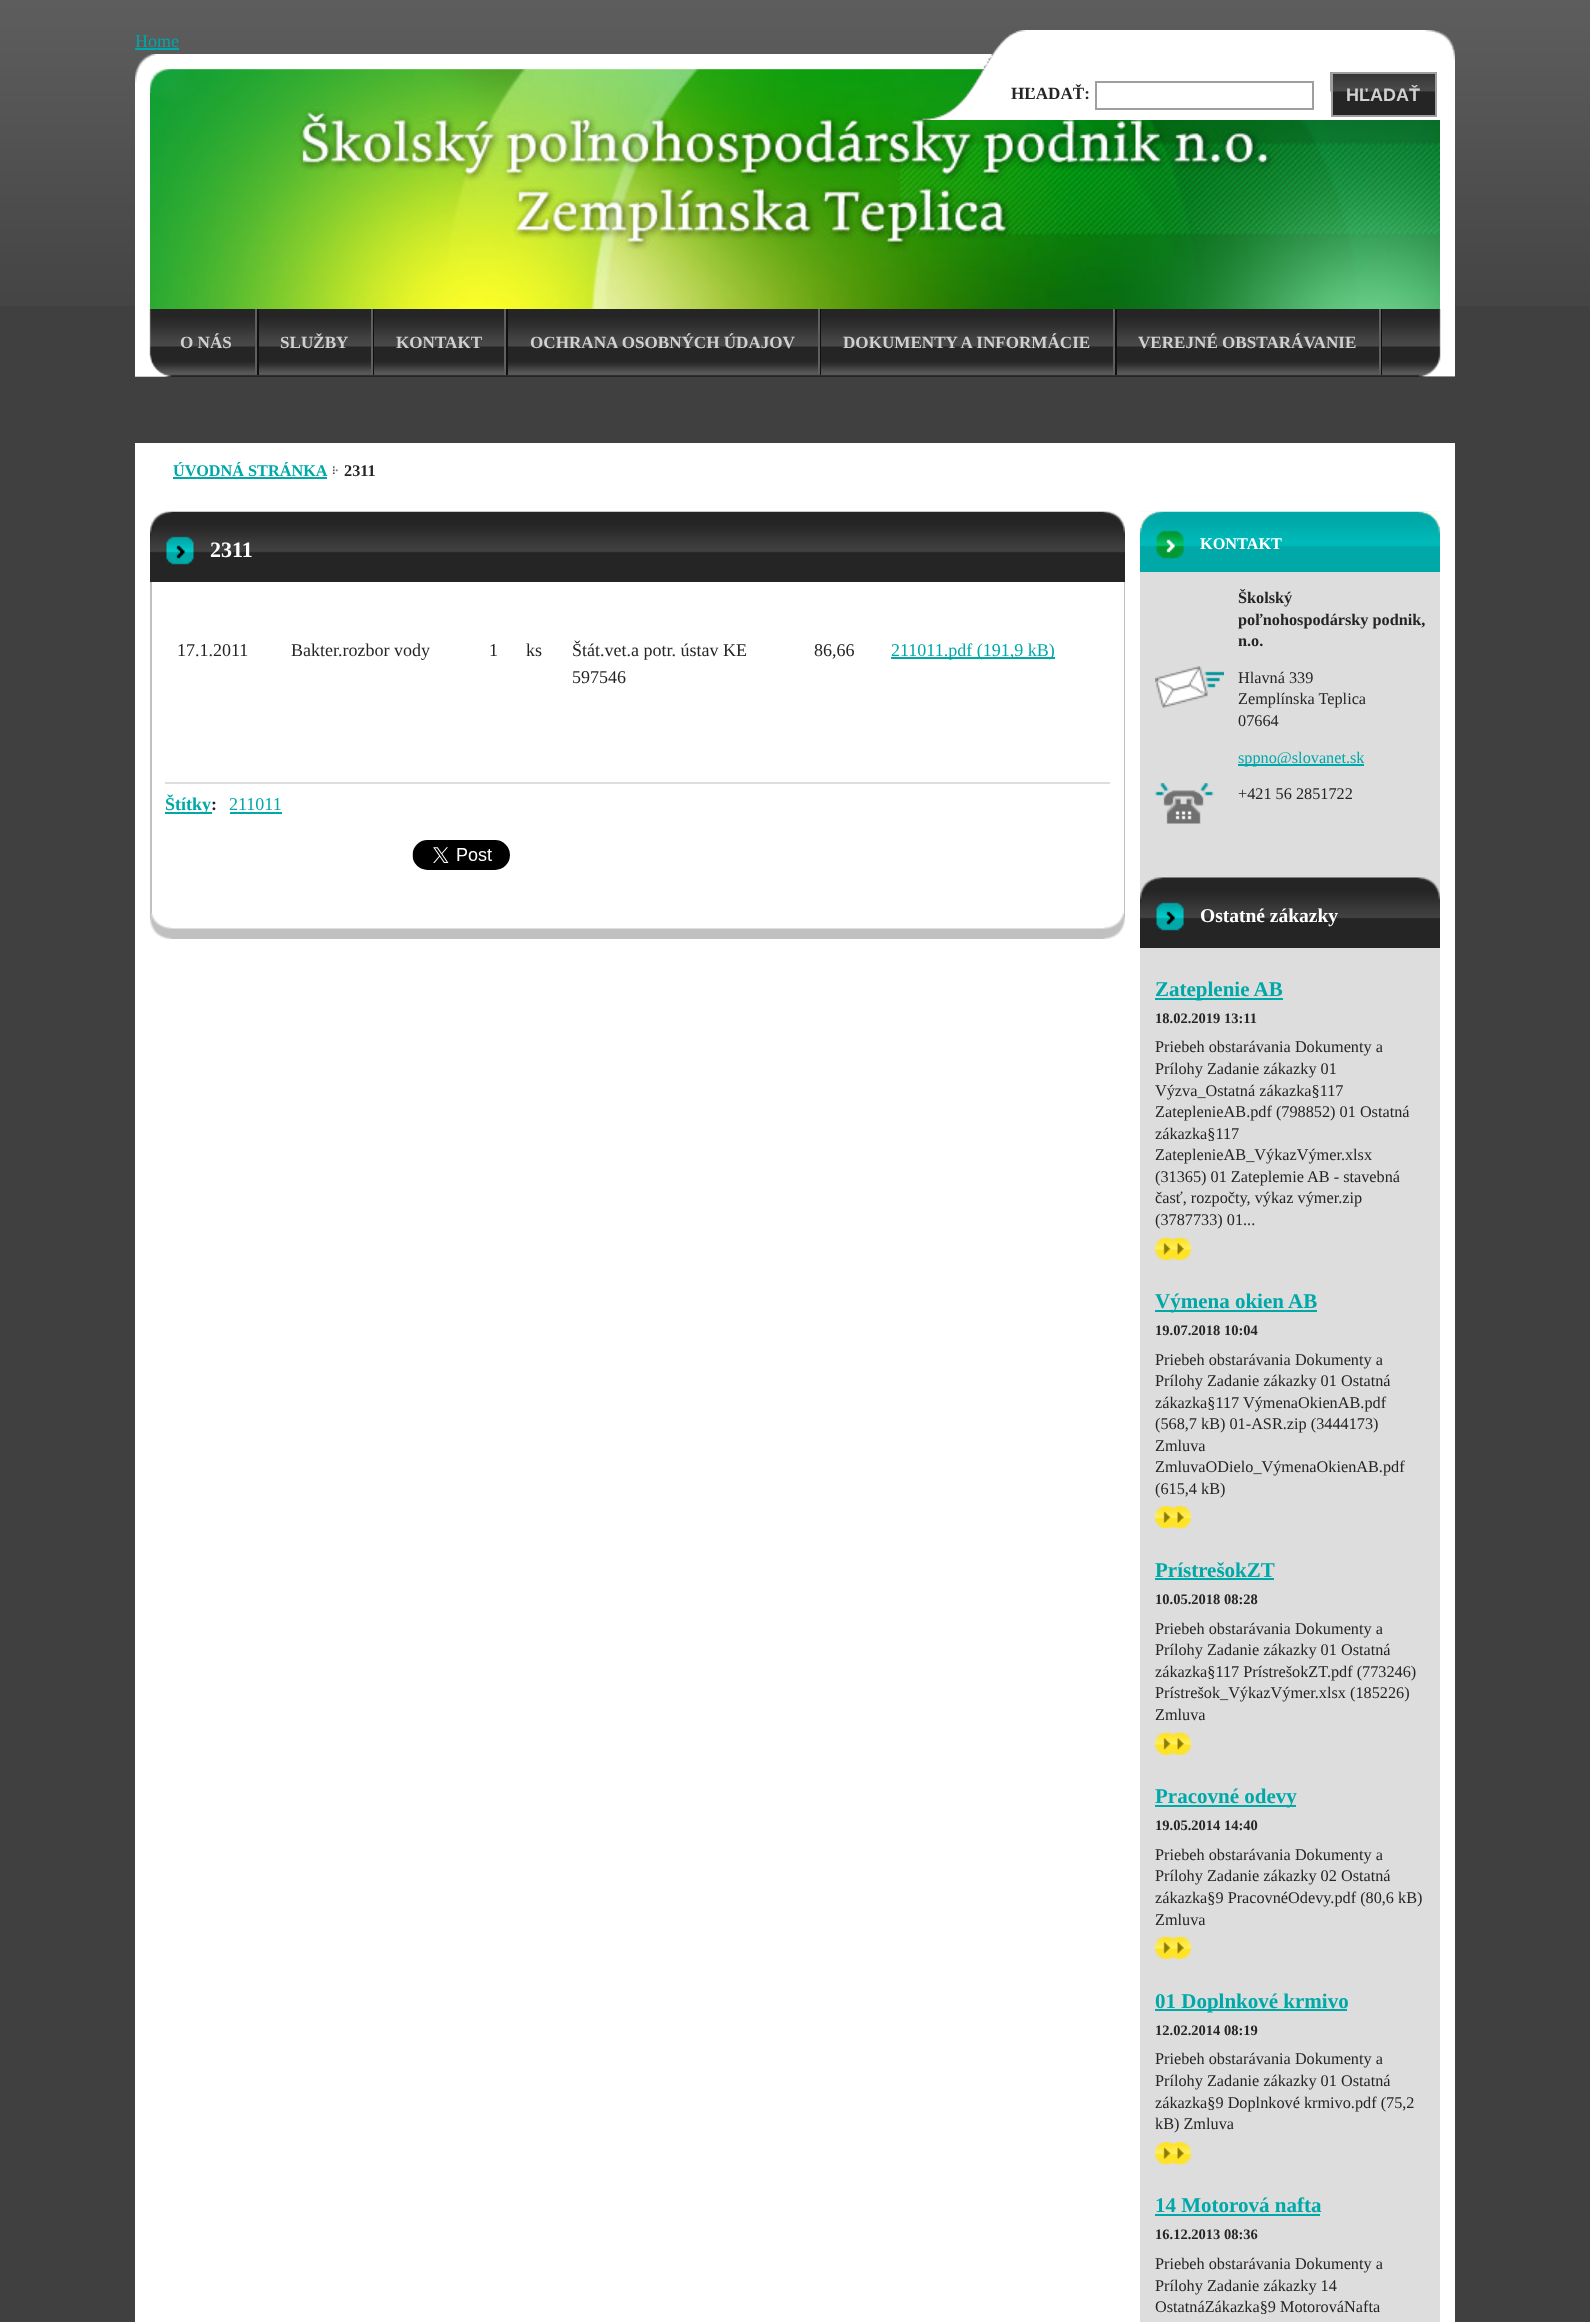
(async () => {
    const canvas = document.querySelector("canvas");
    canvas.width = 1590;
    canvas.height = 2322;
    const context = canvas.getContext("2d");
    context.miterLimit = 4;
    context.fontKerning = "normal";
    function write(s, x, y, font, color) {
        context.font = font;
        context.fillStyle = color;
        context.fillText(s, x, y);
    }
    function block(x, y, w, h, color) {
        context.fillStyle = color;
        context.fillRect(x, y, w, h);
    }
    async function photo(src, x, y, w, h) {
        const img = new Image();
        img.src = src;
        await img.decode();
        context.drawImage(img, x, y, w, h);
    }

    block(0, 0, 1590, 2322, "rgb(64, 64, 64)");
    await photo("media/1.png", 0, 0, 1590, 306);
    write("Home", 135, 47, "18px Liberation Serif", "rgb(0, 168, 168)");
    block(135, 48, 44, 2, "rgb(0, 168, 168)");
    await photo("media/2.png", 135, 55, 1320, 254);
    await photo("media/4.png", 150, 69, 1290, 240);
    await photo("media/3.png", 135, 54, 859, 39);
    block(135, 376, 1320, 1, "rgb(34, 34, 34)");
    await photo("media/5.png", 135, 309, 1320, 68);
    block(257, 309, 2, 66, "rgb(16, 16, 16)");
    block(255, 309, 2, 66, "rgb(95, 95, 95)");
    write("O NÁS", 180, 348, "bold 17.1px Liberation Serif", "rgb(208, 208, 208)");
    block(373, 309, 1, 66, "rgb(16, 16, 16)");
    block(371, 309, 2, 66, "rgb(95, 95, 95)");
    write("SLUŽBY", 280, 348, "bold 17.1px Liberation Serif", "rgb(208, 208, 208)");
    block(506, 309, 2, 66, "rgb(16, 16, 16)");
    block(504, 309, 2, 66, "rgb(95, 95, 95)");
    write("KONTAKT", 396, 348, "bold 17.1px Liberation Serif", "rgb(208, 208, 208)");
    block(820, 309, 1, 66, "rgb(16, 16, 16)");
    block(818, 309, 2, 66, "rgb(95, 95, 95)");
    write("OCHRANA OSOBNÝCH ÚDAJOV", 530, 348, "bold 17.1px Liberation Serif", "rgb(208, 208, 208)");
    block(1115, 309, 2, 66, "rgb(16, 16, 16)");
    block(1113, 309, 2, 66, "rgb(95, 95, 95)");
    write("DOKUMENTY A INFORMÁCIE", 843, 348, "bold 17.1px Liberation Serif", "rgb(208, 208, 208)");
    block(1381, 309, 1, 66, "rgb(16, 16, 16)");
    block(1379, 309, 2, 66, "rgb(95, 95, 95)");
    write("VEREJNÉ OBSTARÁVANIE", 1138, 348, "bold 17.1px Liberation Serif", "rgb(208, 208, 208)");
    await photo("media/6.png", 135, 355, 35, 22);
    await photo("media/7.png", 922, 30, 533, 90);
    write("HĽADAŤ:", 1011, 99, "bold 17.1px Liberation Serif", "rgb(37, 37, 37)");
    context.strokeStyle = "rgb(159, 159, 159)";
    context.lineWidth = 2;
    context.strokeRect(1096, 82, 217, 27);
    block(1333, 91, 102, 24, "rgb(37, 37, 37)");
    await photo("media/8.png", 1330, 72, 105, 20);
    context.strokeRect(1332, 73, 104, 43);
    write("HĽADAŤ", 1346, 101, "bold 18px Liberation Sans", "rgb(208, 208, 208)");
    block(135, 443, 1320, 1879, "rgb(255, 255, 255)");
    write("ÚVODNÁ STRÁNKA", 173, 476, "bold 16.25px Liberation Serif", "rgb(0, 168, 168)");
    block(173, 477, 154, 2, "rgb(0, 168, 168)");
    await photo("media/9.png", 333, 466, 5, 8);
    write("2311", 344, 476, "bold 16.25px Liberation Serif", "rgb(37, 37, 37)");
    await photo("media/10.png", 150, 511, 975, 23);
    block(1124, 582, 1, 332, "rgb(192, 192, 192)");
    block(150, 582, 2, 332, "rgb(192, 192, 192)");
    await photo("media/11.png", 150, 913, 975, 26);
    block(150, 565, 975, 17, "rgb(37, 37, 37)");
    await photo("media/12.png", 150, 534, 975, 31);
    write("2311", 210, 557, "bold 22px Liberation Serif", "rgb(255, 255, 255)");
    write("17.1.2011", 177, 656, "18px Liberation Serif", "rgb(37, 37, 37)");
    write("Bakter.rozbor vody", 291, 656, "18px Liberation Serif", "rgb(37, 37, 37)");
    write("1", 489, 656, "18px Liberation Serif", "rgb(37, 37, 37)");
    write("ks", 526, 656, "18px Liberation Serif", "rgb(37, 37, 37)");
    write("Štát.vet.a potr. ústav KE", 572, 656, "18px Liberation Serif", "rgb(37, 37, 37)");
    write("597546", 572, 683, "18px Liberation Serif", "rgb(37, 37, 37)");
    write("86,66", 814, 656, "18px Liberation Serif", "rgb(37, 37, 37)");
    block(891, 657, 164, 2, "rgb(0, 168, 168)");
    write("211011.pdf (191,9 kB)", 891, 656, "18px Liberation Serif", "rgb(0, 168, 168)");
    block(165, 782, 945, 2, "rgb(221, 221, 221)");
    block(165, 812, 47, 2, "rgb(0, 168, 168)");
    write("Štítky", 165, 810, "bold 18px Liberation Serif", "rgb(0, 168, 168)");
    write(":", 211, 810, "bold 18px Liberation Serif", "rgb(37, 37, 37)");
    write("211011", 229, 810, "18px Liberation Serif", "rgb(0, 168, 168)");
    block(230, 812, 52, 2, "rgb(0, 168, 168)");
    await photo("media/13.png", 412, 840, 98, 30);
    block(1140, 572, 300, 306, "rgb(221, 221, 221)");
    await photo("media/15.png", 1140, 511, 300, 48);
    await photo("media/14.png", 1140, 511, 300, 18);
    block(1140, 559, 300, 13, "rgb(0, 168, 168)");
    write("KONTAKT", 1200, 549, "bold 16.25px Liberation Serif", "rgb(255, 255, 255)");
    write("Školský", 1238, 603, "bold 16.25px Liberation Serif", "rgb(37, 37, 37)");
    write("poľnohospodársky podnik,", 1238, 625, "bold 16.25px Liberation Serif", "rgb(37, 37, 37)");
    write("n.o.", 1238, 646, "bold 16.25px Liberation Serif", "rgb(37, 37, 37)");
    await photo("media/16.png", 1155, 666, 69, 42);
    write("Hlavná 339", 1238, 683, "16.25px Liberation Serif", "rgb(37, 37, 37)");
    write("Zemplínska Teplica", 1238, 704, "16.25px Liberation Serif", "rgb(37, 37, 37)");
    write("07664", 1238, 726, "16.25px Liberation Serif", "rgb(37, 37, 37)");
    block(1238, 764, 126, 2, "rgb(0, 168, 168)");
    write("sppno@slovanet.sk", 1238, 763, "16.25px Liberation Serif", "rgb(0, 168, 168)");
    await photo("media/17.png", 1155, 783, 59, 41);
    write("+421 56 2851722", 1238, 799, "16.25px Liberation Serif", "rgb(37, 37, 37)");
    await photo("media/18.png", 1140, 877, 300, 23);
    block(1140, 948, 300, 1374, "rgb(221, 221, 221)");
    block(1140, 931, 300, 17, "rgb(37, 37, 37)");
    await photo("media/19.png", 1140, 900, 300, 31);
    write("Ostatné zákazky", 1200, 922, "bold 19.5px Liberation Serif", "rgb(255, 255, 255)");
    block(1155, 998, 128, 2, "rgb(0, 168, 168)");
    write("Zateplenie AB", 1155, 996, "bold 21px Liberation Serif", "rgb(0, 168, 168)");
    write("18.02.2019 13:11", 1155, 1023, "bold 14.5px Liberation Serif", "rgb(37, 37, 37)");
    write("Priebeh obstarávania Dokumenty a", 1155, 1052, "16.25px Liberation Serif", "rgb(37, 37, 37)");
    write("Prílohy Zadanie zákazky 01", 1155, 1074, "16.25px Liberation Serif", "rgb(37, 37, 37)");
    write("Výzva_Ostatná zákazka§117", 1155, 1096, "16.25px Liberation Serif", "rgb(37, 37, 37)");
    write("ZateplenieAB.pdf (798852) 01 Ostatná", 1155, 1117, "16.25px Liberation Serif", "rgb(37, 37, 37)");
    write("zákazka§117", 1155, 1139, "16.25px Liberation Serif", "rgb(37, 37, 37)");
    write("ZateplenieAB_VýkazVýmer.xlsx", 1155, 1160, "16.25px Liberation Serif", "rgb(37, 37, 37)");
    write("(31365) 01 Zateplemie AB - stavebná", 1155, 1182, "16.25px Liberation Serif", "rgb(37, 37, 37)");
    write("časť, rozpočty, výkaz výmer.zip", 1155, 1203, "16.25px Liberation Serif", "rgb(37, 37, 37)");
    write("(3787733) 01...", 1155, 1225, "16.25px Liberation Serif", "rgb(37, 37, 37)");
    await photo("media/20.png", 1155, 1237, 36, 23);
    block(1155, 1310, 162, 2, "rgb(0, 168, 168)");
    write("Výmena okien AB", 1155, 1308, "bold 21px Liberation Serif", "rgb(0, 168, 168)");
    write("19.07.2018 10:04", 1155, 1335, "bold 14.5px Liberation Serif", "rgb(37, 37, 37)");
    write("Priebeh obstarávania Dokumenty a", 1155, 1365, "16.25px Liberation Serif", "rgb(37, 37, 37)");
    write("Prílohy Zadanie zákazky 01 Ostatná", 1155, 1386, "16.25px Liberation Serif", "rgb(37, 37, 37)");
    write("zákazka§117 VýmenaOkienAB.pdf", 1155, 1408, "16.25px Liberation Serif", "rgb(37, 37, 37)");
    write("(568,7 kB) 01-ASR.zip (3444173)", 1155, 1429, "16.25px Liberation Serif", "rgb(37, 37, 37)");
    write("Zmluva", 1155, 1451, "16.25px Liberation Serif", "rgb(37, 37, 37)");
    write("ZmluvaODielo_VýmenaOkienAB.pdf", 1155, 1472, "16.25px Liberation Serif", "rgb(37, 37, 37)");
    write("(615,4 kB)", 1155, 1494, "16.25px Liberation Serif", "rgb(37, 37, 37)");
    await photo("media/21.png", 1155, 1506, 36, 23);
    write("PrístrešokZT", 1155, 1577, "bold 21px Liberation Serif", "rgb(0, 168, 168)");
    block(1155, 1578, 119, 2, "rgb(0, 168, 168)");
    write("10.05.2018 08:28", 1155, 1604, "bold 14.5px Liberation Serif", "rgb(37, 37, 37)");
    write("Priebeh obstarávania Dokumenty a", 1155, 1634, "16.25px Liberation Serif", "rgb(37, 37, 37)");
    write("Prílohy Zadanie zákazky 01 Ostatná", 1155, 1655, "16.25px Liberation Serif", "rgb(37, 37, 37)");
    write("zákazka§117 PrístrešokZT.pdf (773246)", 1155, 1677, "16.25px Liberation Serif", "rgb(37, 37, 37)");
    write("Prístrešok_VýkazVýmer.xlsx (185226)", 1155, 1698, "16.25px Liberation Serif", "rgb(37, 37, 37)");
    write("Zmluva", 1155, 1720, "16.25px Liberation Serif", "rgb(37, 37, 37)");
    await photo("media/20.png", 1155, 1732, 36, 23);
    block(1155, 1805, 141, 2, "rgb(0, 168, 168)");
    write("Pracovné odevy", 1155, 1803, "bold 21px Liberation Serif", "rgb(0, 168, 168)");
    write("19.05.2014 14:40", 1155, 1830, "bold 14.5px Liberation Serif", "rgb(37, 37, 37)");
    write("Priebeh obstarávania Dokumenty a", 1155, 1860, "16.25px Liberation Serif", "rgb(37, 37, 37)");
    write("Prílohy Zadanie zákazky 02 Ostatná", 1155, 1881, "16.25px Liberation Serif", "rgb(37, 37, 37)");
    write("zákazka§9 PracovnéOdevy.pdf (80,6 kB)", 1155, 1903, "16.25px Liberation Serif", "rgb(37, 37, 37)");
    write("Zmluva", 1155, 1925, "16.25px Liberation Serif", "rgb(37, 37, 37)");
    await photo("media/20.png", 1155, 1936, 36, 23);
    block(1155, 2009, 192, 2, "rgb(0, 168, 168)");
    write("01 Doplnkové krmivo", 1155, 2008, "bold 21px Liberation Serif", "rgb(0, 168, 168)");
    write("12.02.2014 08:19", 1155, 2035, "bold 14.5px Liberation Serif", "rgb(37, 37, 37)");
    write("Priebeh obstarávania Dokumenty a", 1155, 2064, "16.25px Liberation Serif", "rgb(37, 37, 37)");
    write("Prílohy Zadanie zákazky 01 Ostatná", 1155, 2086, "16.25px Liberation Serif", "rgb(37, 37, 37)");
    write("zákazka§9 Doplnkové krmivo.pdf (75,2", 1155, 2108, "16.25px Liberation Serif", "rgb(37, 37, 37)");
    write("kB) Zmluva", 1155, 2129, "16.25px Liberation Serif", "rgb(37, 37, 37)");
    await photo("media/21.png", 1155, 2142, 36, 23);
    write("14 Motorová nafta", 1155, 2212, "bold 21px Liberation Serif", "rgb(0, 168, 168)");
    block(1155, 2214, 165, 2, "rgb(0, 168, 168)");
    write("16.12.2013 08:36", 1155, 2239, "bold 14.5px Liberation Serif", "rgb(37, 37, 37)");
    write("Priebeh obstarávania Dokumenty a", 1155, 2269, "16.25px Liberation Serif", "rgb(37, 37, 37)");
    write("Prílohy Zadanie zákazky 14", 1155, 2291, "16.25px Liberation Serif", "rgb(37, 37, 37)");
    write("OstatnáZákazka§9 MotorováNafta", 1155, 2312, "16.25px Liberation Serif", "rgb(37, 37, 37)");
})();
